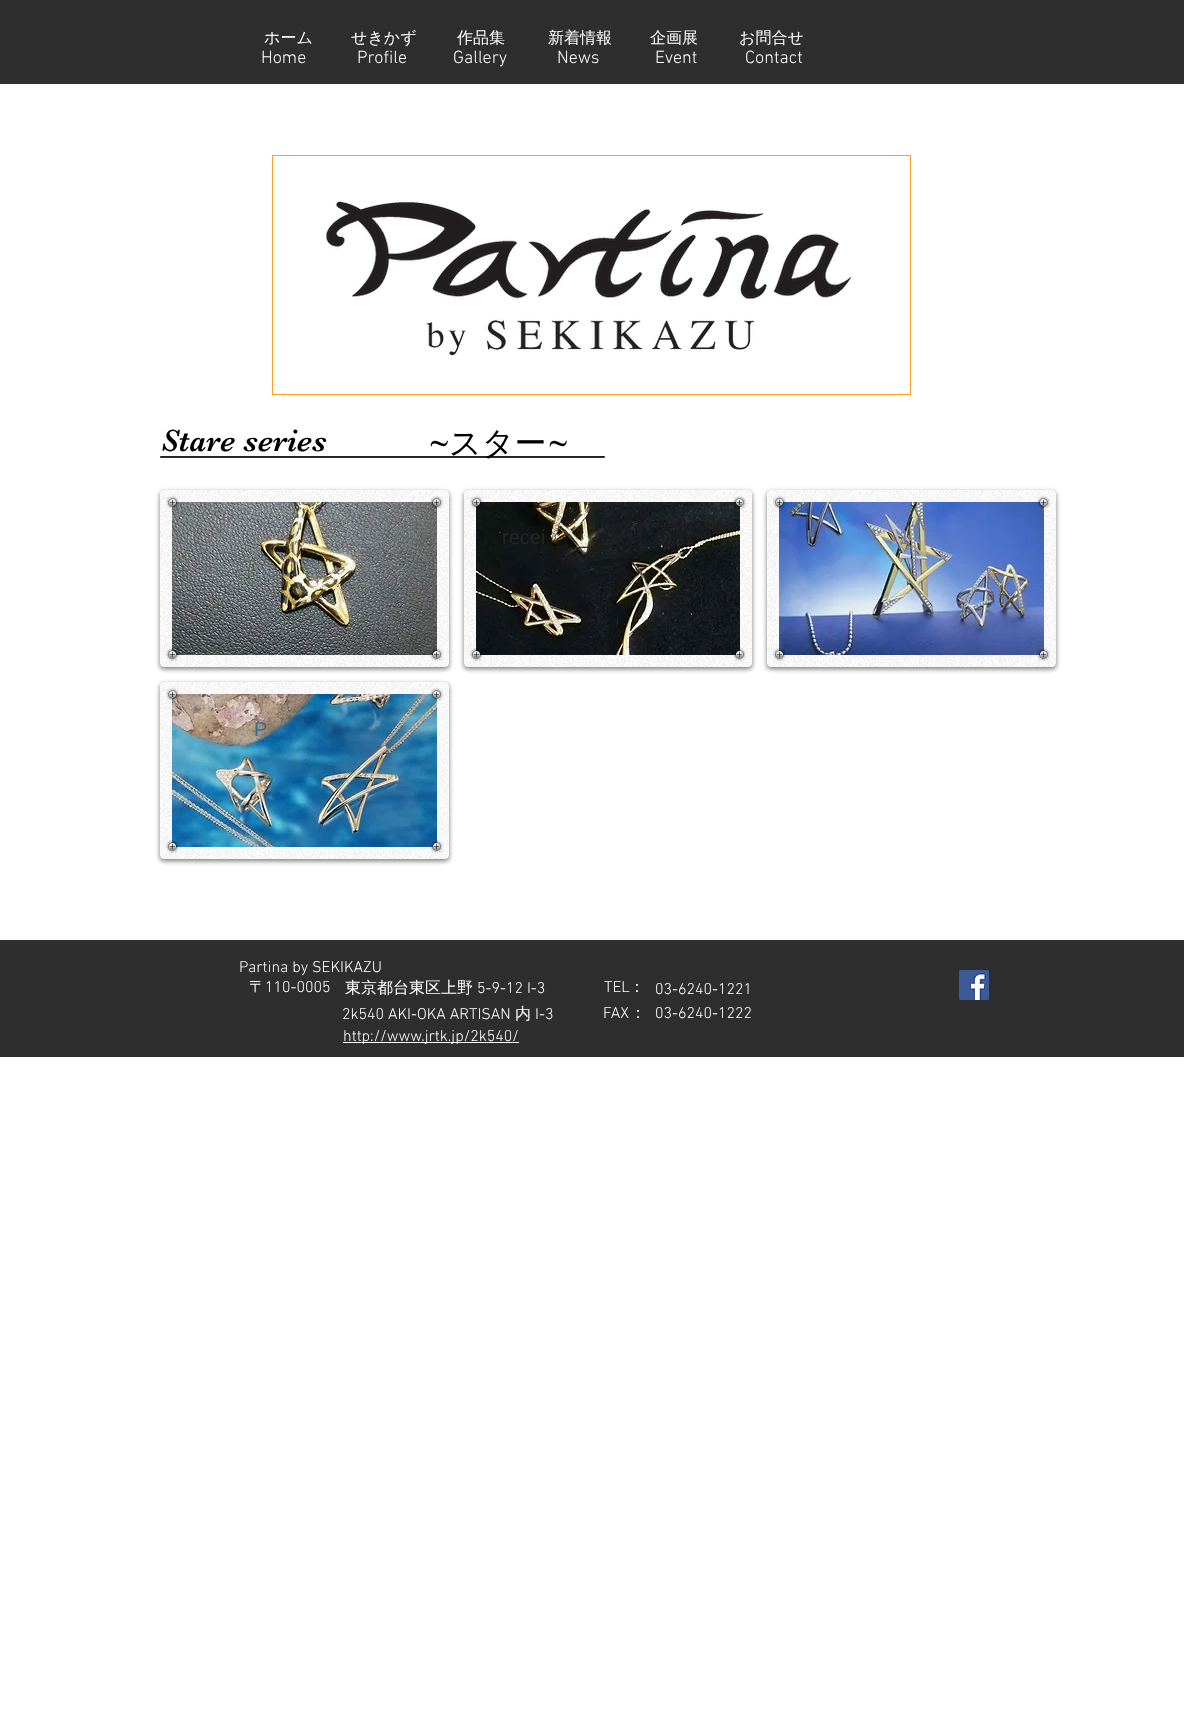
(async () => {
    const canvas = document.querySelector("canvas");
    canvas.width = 1184;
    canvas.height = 1732;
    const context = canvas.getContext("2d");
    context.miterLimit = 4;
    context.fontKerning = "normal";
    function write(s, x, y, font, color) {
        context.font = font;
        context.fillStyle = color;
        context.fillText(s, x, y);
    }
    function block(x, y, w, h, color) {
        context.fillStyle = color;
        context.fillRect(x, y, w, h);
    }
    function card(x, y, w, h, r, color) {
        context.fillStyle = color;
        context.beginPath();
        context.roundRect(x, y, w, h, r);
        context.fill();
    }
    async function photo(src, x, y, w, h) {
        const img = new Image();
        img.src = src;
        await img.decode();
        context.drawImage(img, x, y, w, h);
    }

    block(0, 0, 1184, 1732, "rgb(255, 255, 255)");
    block(0, 0, 1184, 84, "rgb(47, 46, 46)");
    write("ホーム", 264, 43, "500 16px WenQuanYi Zen Hei", "rgb(255, 255, 255)");
    write("せきかず", 351, 43, "500 16px WenQuanYi Zen Hei", "rgb(255, 255, 255)");
    write("作品集", 457, 43, "500 16px WenQuanYi Zen Hei", "rgb(255, 255, 255)");
    write("新着情報", 548, 43, "500 16px WenQuanYi Zen Hei", "rgb(255, 255, 255)");
    write("企画展", 650, 43, "500 16px WenQuanYi Zen Hei", "rgb(255, 255, 255)");
    write("お問合せ", 739, 43, "500 16px WenQuanYi Zen Hei", "rgb(255, 255, 255)");
    write("Home", 261, 63, "300 18px 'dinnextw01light'", "rgb(255, 255, 255)");
    write("Profile", 357, 63, "300 18px 'dinnextw01light'", "rgb(255, 255, 255)");
    write("Gallery", 453, 63, "300 18px 'dinnextw01light'", "rgb(255, 255, 255)");
    write("News", 557, 63, "300 18px 'dinnextw01light'", "rgb(255, 255, 255)");
    write("Event", 655, 63, "300 18px 'dinnextw01light'", "rgb(255, 255, 255)");
    write("Contact", 745, 63, "300 18px 'dinnextw01light'", "rgb(255, 255, 255)");
    context.strokeStyle = "rgb(255, 159, 36)";
    context.strokeRect(272.5, 155.5, 638, 239);
    await photo("media/1.png", 326, 201, 526, 155);
    write("Stare series", 161, 451, "32px 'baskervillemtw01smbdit'", "rgb(0, 0, 0)");
    write("~", 428, 454, "32px 'baskervillemtw01smbdit'", "rgb(0, 0, 0)");
    card(160, 456, 445, 2, 1, "rgb(47, 46, 46)");
    context.fillStyle = "rgba(0, 0, 0, 0.25)";
    context.beginPath();
    context.moveTo(161, 457);
    context.lineTo(605, 457);
    context.lineTo(604, 456);
    context.lineTo(161, 456);
    context.bezierCurveTo(160, 456, 160, 457, 160, 458);
    context.closePath();
    context.fill();
    write("スター", 449, 454, "500 32px WenQuanYi Zen Hei", "rgb(0, 0, 0)");
    write("~", 547, 454, "32px 'baskervillemtw01smbdit'", "rgb(0, 0, 0)");
    context.save();
    context.beginPath();
    context.moveTo(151, 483);
    context.lineTo(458, 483);
    context.lineTo(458, 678);
    context.lineTo(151, 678);
    context.closePath();
    context.moveTo(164, 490);
    context.lineTo(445, 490);
    context.bezierCurveTo(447, 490, 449, 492, 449, 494);
    context.lineTo(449, 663);
    context.bezierCurveTo(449, 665, 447, 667, 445, 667);
    context.lineTo(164, 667);
    context.bezierCurveTo(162, 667, 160, 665, 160, 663);
    context.lineTo(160, 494);
    context.bezierCurveTo(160, 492, 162, 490, 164, 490);
    context.closePath();
    context.clip("evenodd");
    context.fillStyle = "rgba(0, 0, 0, 0.53)";
    context.filter = "blur(2.5px)";
    context.beginPath();
    context.roundRect(160, 492, 289, 177, 4);
    context.fill();
    context.filter = "none";
    context.restore();
    await photo("media/2.png", 160, 490, 289, 177);
    await photo("media/4.png", 172, 502, 265, 153);
    await photo("media/3.png", 166, 496, 13, 13);
    await photo("media/5.png", 430, 648, 13, 13);
    await photo("media/6.png", 430, 496, 13, 13);
    await photo("media/7.png", 166, 648, 13, 13);
    context.save();
    context.beginPath();
    context.moveTo(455, 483);
    context.lineTo(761, 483);
    context.lineTo(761, 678);
    context.lineTo(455, 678);
    context.closePath();
    context.moveTo(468, 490);
    context.lineTo(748, 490);
    context.bezierCurveTo(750, 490, 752, 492, 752, 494);
    context.lineTo(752, 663);
    context.bezierCurveTo(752, 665, 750, 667, 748, 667);
    context.lineTo(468, 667);
    context.bezierCurveTo(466, 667, 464, 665, 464, 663);
    context.lineTo(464, 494);
    context.bezierCurveTo(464, 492, 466, 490, 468, 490);
    context.closePath();
    context.clip("evenodd");
    context.fillStyle = "rgba(0, 0, 0, 0.53)";
    context.filter = "blur(2.5px)";
    context.beginPath();
    context.roundRect(464, 492, 288, 177, 4);
    context.fill();
    context.filter = "none";
    context.restore();
    await photo("media/9.png", 464, 490, 288, 177);
    await photo("media/11.png", 476, 502, 264, 153);
    await photo("media/8.png", 733, 496, 13, 13);
    await photo("media/10.png", 470, 496, 13, 13);
    write("recei", 502, 544, "20px Liberation Sans", "rgb(37, 39, 37)");
    write("_", 578, 544, "20px Liberation Sans", "rgb(37, 39, 37)");
    await photo("media/12.png", 733, 648, 13, 13);
    await photo("media/13.png", 470, 648, 13, 13);
    context.save();
    context.beginPath();
    context.moveTo(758, 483);
    context.lineTo(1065, 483);
    context.lineTo(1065, 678);
    context.lineTo(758, 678);
    context.closePath();
    context.moveTo(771, 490);
    context.lineTo(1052, 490);
    context.bezierCurveTo(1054, 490, 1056, 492, 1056, 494);
    context.lineTo(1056, 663);
    context.bezierCurveTo(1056, 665, 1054, 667, 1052, 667);
    context.lineTo(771, 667);
    context.bezierCurveTo(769, 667, 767, 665, 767, 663);
    context.lineTo(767, 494);
    context.bezierCurveTo(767, 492, 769, 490, 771, 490);
    context.closePath();
    context.clip("evenodd");
    context.fillStyle = "rgba(0, 0, 0, 0.53)";
    context.filter = "blur(2.5px)";
    context.beginPath();
    context.roundRect(767, 492, 289, 177, 4);
    context.fill();
    context.filter = "none";
    context.restore();
    await photo("media/2.png", 767, 490, 289, 177);
    await photo("media/16.png", 779, 502, 265, 153);
    await photo("media/14.png", 1037, 496, 13, 13);
    await photo("media/15.png", 773, 496, 13, 13);
    write("I", 806, 544, "20px Liberation Sans", "rgb(100, 129, 179)");
    write("1", 899, 544, "20px Liberation Sans", "rgb(100, 129, 179)");
    await photo("media/17.png", 1037, 648, 13, 13);
    await photo("media/18.png", 773, 648, 13, 13);
    context.save();
    context.beginPath();
    context.moveTo(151, 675);
    context.lineTo(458, 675);
    context.lineTo(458, 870);
    context.lineTo(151, 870);
    context.closePath();
    context.moveTo(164, 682);
    context.lineTo(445, 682);
    context.bezierCurveTo(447, 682, 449, 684, 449, 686);
    context.lineTo(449, 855);
    context.bezierCurveTo(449, 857, 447, 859, 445, 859);
    context.lineTo(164, 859);
    context.bezierCurveTo(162, 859, 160, 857, 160, 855);
    context.lineTo(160, 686);
    context.bezierCurveTo(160, 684, 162, 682, 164, 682);
    context.closePath();
    context.clip("evenodd");
    context.fillStyle = "rgba(0, 0, 0, 0.53)";
    context.filter = "blur(2.5px)";
    context.beginPath();
    context.roundRect(160, 684, 289, 177, 4);
    context.fill();
    context.filter = "none";
    context.restore();
    await photo("media/2.png", 160, 682, 289, 177);
    await photo("media/21.png", 172, 694, 265, 153);
    await photo("media/19.png", 430, 688, 13, 13);
    await photo("media/20.png", 166, 688, 13, 13);
    write("P", 254, 736, "20px Liberation Sans", "rgb(52, 111, 150)");
    await photo("media/22.png", 430, 840, 13, 13);
    await photo("media/23.png", 166, 840, 13, 13);
    block(0, 940, 1184, 117, "rgb(47, 46, 46)");
    write("Partina by SEKIKAZU", 239, 972, "300 16px 'dinnextw01light'", "rgb(255, 255, 255)");
    write("〒", 249, 992, "500 16px WenQuanYi Zen Hei", "rgb(255, 255, 255)");
    write("110-0005", 265, 992, "300 16px 'dinnextw01light'", "rgb(255, 255, 255)");
    write("東京都台東区上野", 345, 993, "500 16px WenQuanYi Zen Hei", "rgb(255, 255, 255)");
    write("5-9-12 I-3", 477, 993, "300 16px 'dinnextw01light'", "rgb(255, 255, 255)");
    write("TEL", 604, 992, "300 16px 'dinnextw01light'", "rgb(255, 255, 255)");
    write("：", 629, 992, "500 16px WenQuanYi Zen Hei", "rgb(255, 255, 255)");
    write("03-6240-1221", 655, 994, "300 16px 'dinnextw01light'", "rgb(255, 255, 255)");
    await photo("media/24.png", 959, 970, 30, 30);
    write("2k540 AKI-OKA ARTISAN", 342, 1019, "300 16px 'dinnextw01light'", "rgb(255, 255, 255)");
    write("内", 515, 1019, "500 16px WenQuanYi Zen Hei", "rgb(255, 255, 255)");
    write("I-3", 535, 1019, "300 16px 'dinnextw01light'", "rgb(255, 255, 255)");
    write("FAX", 603, 1018, "300 16px 'dinnextw01light'", "rgb(255, 255, 255)");
    write("：", 630, 1018, "500 16px WenQuanYi Zen Hei", "rgb(255, 255, 255)");
    write("03-6240-1222", 655, 1018, "300 16px 'dinnextw01light'", "rgb(255, 255, 255)");
    block(343, 1042, 176, 1, "rgb(255, 255, 255)");
    write("http://www.jrtk.jp/2k540/", 343, 1041, "300 16px 'dinnextw01light'", "rgb(255, 255, 255)");
})();
